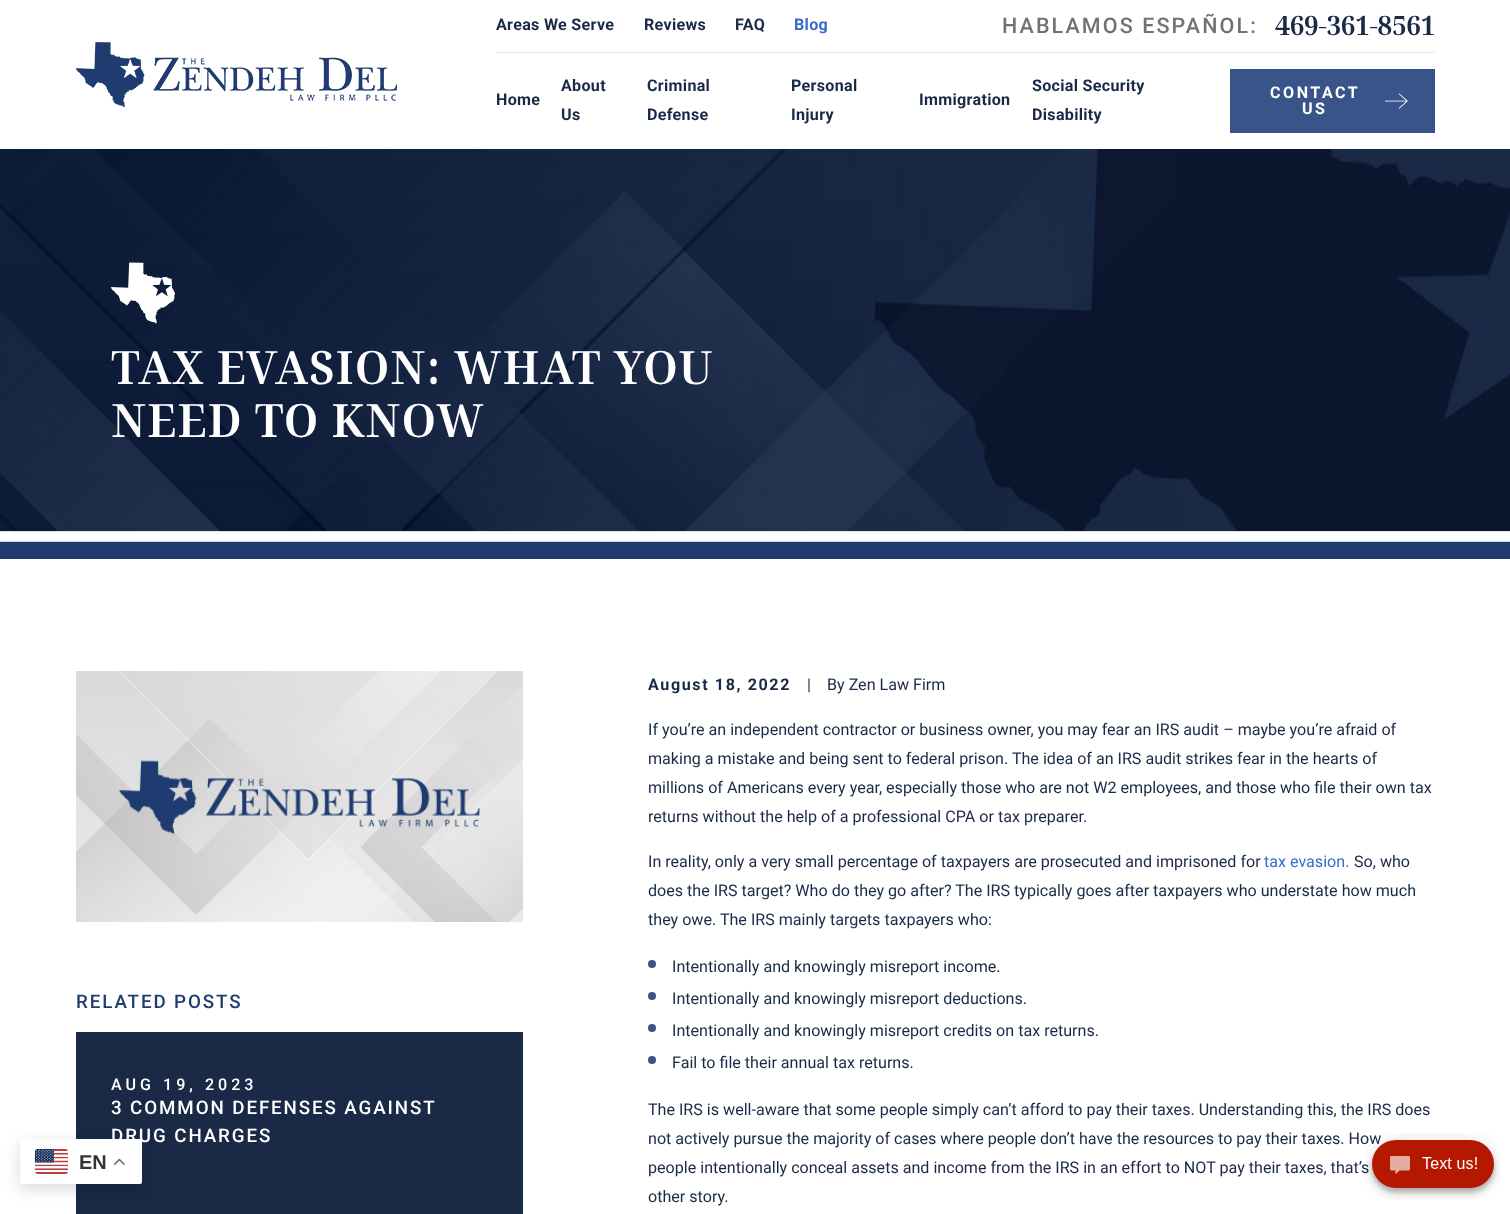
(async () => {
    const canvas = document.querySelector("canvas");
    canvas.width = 1510;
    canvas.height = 1214;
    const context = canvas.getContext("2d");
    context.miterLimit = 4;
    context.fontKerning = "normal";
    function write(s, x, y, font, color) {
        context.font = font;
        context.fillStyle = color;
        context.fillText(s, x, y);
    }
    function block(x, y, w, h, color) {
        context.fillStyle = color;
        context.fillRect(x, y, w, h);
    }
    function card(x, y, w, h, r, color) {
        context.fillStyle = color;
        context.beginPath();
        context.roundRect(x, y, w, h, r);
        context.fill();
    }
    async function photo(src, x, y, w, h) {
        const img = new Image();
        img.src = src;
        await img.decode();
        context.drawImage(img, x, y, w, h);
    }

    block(0, 0, 1510, 1214, "rgb(255, 255, 255)");
    await photo("media/1.png", 76, 42, 321, 65);
    block(496, 52, 939, 1, "rgb(230, 230, 230)");
    context.letterSpacing = "0.3px";
    write("Areas We Serve", 496, 30, "bold 16.1px Roboto", "rgb(25, 41, 70)");
    write("Reviews", 644, 30, "bold 16.1px Roboto", "rgb(25, 41, 70)");
    write("FAQ", 735, 30, "bold 16.1px Roboto", "rgb(25, 41, 70)");
    write("Blog", 794, 30, "bold 16.1px Roboto", "rgb(56, 107, 203)");
    context.letterSpacing = "2.1px";
    write("HABLAMOS ESPAÑOL:", 1002, 33, "500 21.5px Roboto", "rgb(114, 114, 114)");
    context.letterSpacing = "0px";
    write("469-361-8561", 1275, 35, "bold 25.75px Noto Serif Display", "rgb(25, 41, 70)");
    context.letterSpacing = "0.3px";
    write("Home", 496, 105, "bold 16.1px Roboto", "rgb(25, 41, 70)");
    write("About", 561, 91, "bold 16.1px Roboto", "rgb(25, 41, 70)");
    write("Us", 561, 120, "bold 16.1px Roboto", "rgb(25, 41, 70)");
    write("Criminal", 647, 91, "bold 16.1px Roboto", "rgb(25, 41, 70)");
    write("Defense", 647, 120, "bold 16.1px Roboto", "rgb(25, 41, 70)");
    write("Personal", 791, 91, "bold 16.1px Roboto", "rgb(25, 41, 70)");
    write("Injury", 791, 120, "bold 16.1px Roboto", "rgb(25, 41, 70)");
    write("Immigration", 919, 105, "bold 16.1px Roboto", "rgb(25, 41, 70)");
    write("Social Security", 1032, 91, "bold 16.1px Roboto", "rgb(25, 41, 70)");
    write("Disability", 1032, 120, "bold 16.1px Roboto", "rgb(25, 41, 70)");
    block(1230, 69, 205, 64, "rgb(56, 84, 137)");
    context.letterSpacing = "2.5px";
    write("CONTACT", 1270, 98, "bold 16.1px Roboto", "rgb(255, 255, 255)");
    write("US", 1302, 114, "bold 16.1px Roboto", "rgb(255, 255, 255)");
    await photo("media/2.png", 1385, 93, 23, 16);
    await photo("media/3.png", 0, 149, 1510, 410);
    await photo("media/4.png", 111, 262, 64, 62);
    context.letterSpacing = "2.25px";
    write("TAX EVASION: WHAT YOU", 111, 384, "bold 44.25px Noto Serif Display", "rgb(255, 255, 255)");
    write("NEED TO KNOW", 111, 437, "bold 44.25px Noto Serif Display", "rgb(255, 255, 255)");
    await photo("media/5.png", 76, 671, 447, 251);
    context.letterSpacing = "1.9px";
    write("RELATED POSTS", 76, 1008, "500 18.75px Roboto", "rgb(31, 59, 112)");
    block(76, 1032, 447, 182, "rgb(25, 41, 70)");
    context.letterSpacing = "4px";
    write("AUG 19, 2023", 111, 1090, "500 16.1px Roboto", "rgb(255, 255, 255)");
    context.letterSpacing = "1.9px";
    write("3 COMMON DEFENSES AGAINST", 111, 1114, "500 18.75px Roboto", "rgb(255, 255, 255)");
    write("DRUG CHARGES", 111, 1142, "500 18.75px Roboto", "rgb(255, 255, 255)");
    context.letterSpacing = "1.6px";
    write("August 18, 2022", 648, 690, "bold 16.1px Roboto", "rgb(25, 41, 70)");
    context.letterSpacing = "0px";
    write("|", 807, 690, "16.1px Roboto", "rgb(25, 41, 70)");
    write("By Zen Law Firm", 827, 690, "16.1px Roboto", "rgb(25, 41, 70)");
    write("If you’re an independent contractor or business owner, you may fear an IRS audit – maybe you’re afraid of", 648, 735, "16.1px Roboto", "rgb(25, 41, 70)");
    write("making a mistake and being sent to federal prison. The idea of an IRS audit strikes fear in the hearts of", 648, 764, "16.1px Roboto", "rgb(25, 41, 70)");
    write("millions of Americans every year, especially those who are not W2 employees, and those who file their own tax", 648, 793, "16.1px Roboto", "rgb(25, 41, 70)");
    write("returns without the help of a professional CPA or tax preparer.", 648, 822, "16.1px Roboto", "rgb(25, 41, 70)");
    write("In reality, only a very small percentage of taxpayers are prosecuted and imprisoned for", 648, 867, "16.1px Roboto", "rgb(25, 41, 70)");
    write("tax evasion.", 1264, 867, "16.1px Roboto", "rgb(56, 107, 203)");
    write("So, who", 1354, 867, "16.1px Roboto", "rgb(25, 41, 70)");
    write("does the IRS target? Who do they go after? The IRS typically goes after taxpayers who understate how much", 648, 896, "16.1px Roboto", "rgb(25, 41, 70)");
    write("they owe. The IRS mainly targets taxpayers who:", 648, 925, "16.1px Roboto", "rgb(25, 41, 70)");
    context.fillStyle = "rgb(56, 84, 137)";
    context.beginPath();
    context.arc(652, 964, 4, 0, Math.PI * 2);
    context.fill();
    write("Intentionally and knowingly misreport income.", 672, 972, "16.1px Roboto", "rgb(25, 41, 70)");
    context.fillStyle = "rgb(56, 84, 137)";
    context.beginPath();
    context.arc(652, 996, 4, 0, Math.PI * 2);
    context.fill();
    write("Intentionally and knowingly misreport deductions.", 672, 1004, "16.1px Roboto", "rgb(25, 41, 70)");
    context.fillStyle = "rgb(56, 84, 137)";
    context.beginPath();
    context.arc(652, 1028, 4, 0, Math.PI * 2);
    context.fill();
    write("Intentionally and knowingly misreport credits on tax returns.", 672, 1036, "16.1px Roboto", "rgb(25, 41, 70)");
    context.fillStyle = "rgb(56, 84, 137)";
    context.beginPath();
    context.arc(652, 1060, 4, 0, Math.PI * 2);
    context.fill();
    write("Fail to file their annual tax returns.", 672, 1068, "16.1px Roboto", "rgb(25, 41, 70)");
    write("The IRS is well-aware that some people simply can’t afford to pay their taxes. Understanding this, the IRS does", 648, 1115, "16.1px Roboto", "rgb(25, 41, 70)");
    write("not actively pursue the majority of cases where people don’t have the resources to pay their taxes. How", 648, 1144, "16.1px Roboto", "rgb(25, 41, 70)");
    write("people intentionally conceal assets and income from the IRS in an effort to NOT pay their taxes, that’s", 648, 1173, "16.1px Roboto", "rgb(25, 41, 70)");
    write("other story.", 648, 1202, "16.1px Roboto", "rgb(25, 41, 70)");
    await photo("media/6.png", 1365, 1133, 136, 67);
    context.fillStyle = "rgba(0, 0, 0, 0.15)";
    context.filter = "blur(7.5px)";
    context.beginPath();
    context.roundRect(20, 1144, 122, 45, 2);
    context.fill();
    context.filter = "none";
    card(20, 1139, 122, 45, 2, "rgb(255, 255, 255)");
    await photo("media/7.png", 35, 1149, 33, 25);
    write("EN", 79, 1169, "bold 20px Liberation Sans", "rgb(51, 51, 51)");
    await photo("media/8.png", 114, 1158, 11, 7);
})();
